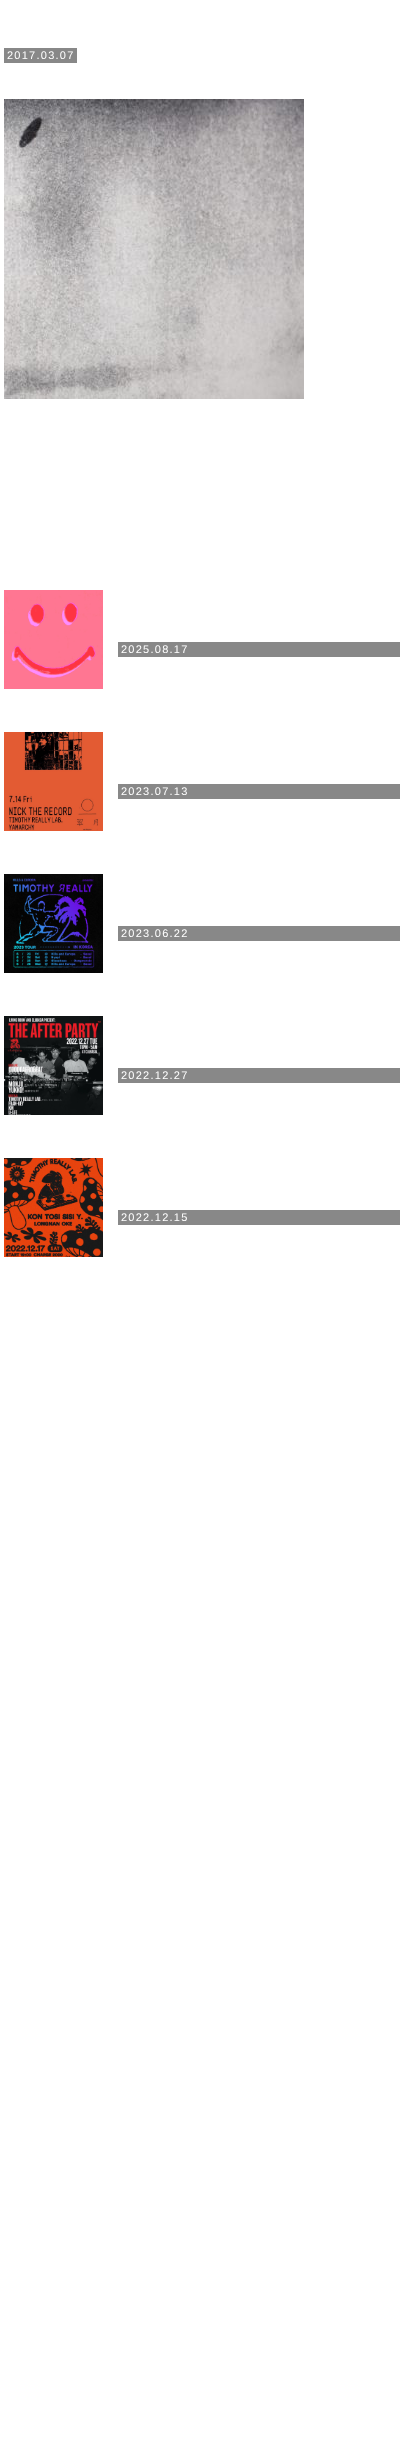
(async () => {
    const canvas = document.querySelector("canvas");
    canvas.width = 404;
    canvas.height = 2454;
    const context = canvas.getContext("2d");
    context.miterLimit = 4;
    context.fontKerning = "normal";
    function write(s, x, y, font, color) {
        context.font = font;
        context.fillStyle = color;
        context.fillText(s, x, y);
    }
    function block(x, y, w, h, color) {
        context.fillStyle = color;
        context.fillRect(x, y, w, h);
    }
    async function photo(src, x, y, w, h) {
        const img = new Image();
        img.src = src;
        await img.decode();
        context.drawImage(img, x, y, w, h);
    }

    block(0, 0, 404, 2454, "rgb(255, 255, 255)");
    block(4, 48, 73, 15, "rgb(136, 136, 136)");
    context.letterSpacing = "1.25px";
    write("2017.03.07", 7, 59, "11px Liberation Sans", "rgb(255, 255, 255)");
    await photo("media/1.png", 4, 99, 300, 300);
    await photo("media/2.png", 4, 590, 99, 99);
    block(118, 642, 282, 15, "rgb(136, 136, 136)");
    write("2025.08.17", 121, 653, "11px Liberation Sans", "rgb(255, 255, 255)");
    await photo("media/3.png", 4, 732, 99, 99);
    block(118, 784, 282, 15, "rgb(136, 136, 136)");
    write("2023.07.13", 121, 795, "11px Liberation Sans", "rgb(255, 255, 255)");
    await photo("media/4.png", 4, 874, 99, 99);
    block(118, 926, 282, 15, "rgb(136, 136, 136)");
    write("2023.06.22", 121, 937, "11px Liberation Sans", "rgb(255, 255, 255)");
    await photo("media/5.png", 4, 1016, 99, 99);
    block(118, 1068, 282, 15, "rgb(136, 136, 136)");
    write("2022.12.27", 121, 1079, "11px Liberation Sans", "rgb(255, 255, 255)");
    await photo("media/6.png", 4, 1158, 99, 99);
    block(118, 1210, 282, 15, "rgb(136, 136, 136)");
    write("2022.12.15", 121, 1221, "11px Liberation Sans", "rgb(255, 255, 255)");
})();
